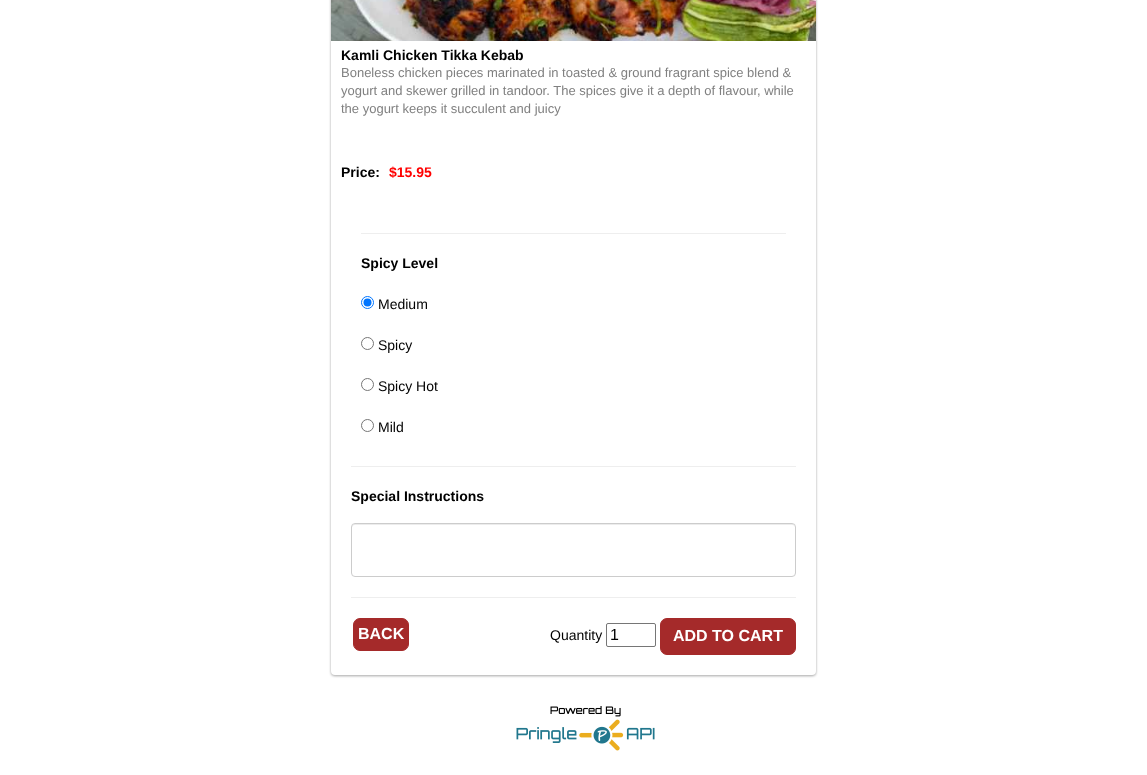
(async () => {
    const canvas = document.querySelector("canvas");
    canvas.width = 1147;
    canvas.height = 775;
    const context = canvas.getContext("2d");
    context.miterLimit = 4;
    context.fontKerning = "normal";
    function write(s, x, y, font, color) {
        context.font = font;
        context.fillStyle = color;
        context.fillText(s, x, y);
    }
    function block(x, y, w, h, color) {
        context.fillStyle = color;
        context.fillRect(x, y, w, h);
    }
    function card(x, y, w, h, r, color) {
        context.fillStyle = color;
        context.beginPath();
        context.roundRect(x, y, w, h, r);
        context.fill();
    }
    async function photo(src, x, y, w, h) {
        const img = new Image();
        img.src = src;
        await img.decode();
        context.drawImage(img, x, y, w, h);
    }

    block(0, 0, 1147, 775, "rgb(255, 255, 255)");
    context.fillStyle = "rgba(0, 0, 0, 0.24)";
    context.filter = "blur(1px)";
    context.beginPath();
    context.roundRect(331, -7, 485, 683, 4);
    context.fill();
    context.filter = "none";
    context.fillStyle = "rgba(0, 0, 0, 0.12)";
    context.filter = "blur(1.5px)";
    context.beginPath();
    context.roundRect(331, -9, 485, 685, 4);
    context.fill();
    context.filter = "none";
    card(331, -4, 485, 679, 4, "rgb(255, 255, 255)");
    await photo("media/1.png", 331, 0, 485, 41);
    write("Kamli Chicken Tikka Kebab", 341, 60, "bold 14px Liberation Sans", "rgb(0, 0, 0)");
    write("Boneless chicken pieces marinated in toasted & ground fragrant spice blend &", 341, 77, "13px Liberation Sans", "rgb(128, 128, 128)");
    write("yogurt and skewer grilled in tandoor. The spices give it a depth of flavour, while", 341, 95, "13px Liberation Sans", "rgb(128, 128, 128)");
    write("the yogurt keeps it succulent and juicy", 341, 113, "13px Liberation Sans", "rgb(128, 128, 128)");
    write("Price:", 341, 177, "bold 14px Liberation Sans", "rgb(0, 0, 0)");
    write("$15.95", 389, 177, "bold 14px Liberation Sans", "rgb(255, 0, 0)");
    block(361, 233, 425, 1, "rgb(238, 238, 238)");
    write("Spicy Level", 361, 268, "bold 14px Liberation Sans", "rgb(0, 0, 0)");
    context.beginPath();
    context.arc(367.5, 302.5, 6, 0, Math.PI * 2);
    context.strokeStyle = "rgb(0, 117, 255)";
    context.stroke();
    context.fillStyle = "rgb(0, 117, 255)";
    context.beginPath();
    context.arc(367.5, 302.5, 4, 0, Math.PI * 2);
    context.fill();
    write("Medium", 378, 309, "14px Liberation Sans", "rgb(0, 0, 0)");
    context.beginPath();
    context.arc(367.5, 343.5, 6, 0, Math.PI * 2);
    context.strokeStyle = "rgb(118, 118, 118)";
    context.stroke();
    write("Spicy", 378, 350, "14px Liberation Sans", "rgb(0, 0, 0)");
    context.beginPath();
    context.arc(367.5, 384.5, 6, 0, Math.PI * 2);
    context.stroke();
    write("Spicy Hot", 378, 391, "14px Liberation Sans", "rgb(0, 0, 0)");
    context.beginPath();
    context.arc(367.5, 425.5, 6, 0, Math.PI * 2);
    context.stroke();
    write("Mild", 378, 432, "14px Liberation Sans", "rgb(0, 0, 0)");
    block(351, 466, 445, 1, "rgb(238, 238, 238)");
    write("Special Instructions", 351, 501, "bold 14px Liberation Sans", "rgb(0, 0, 0)");
    context.fillStyle = "rgb(236, 236, 236)";
    context.beginPath();
    context.moveTo(355, 525);
    context.lineTo(792, 525);
    context.bezierCurveTo(794, 525, 795, 526, 795, 528);
    context.bezierCurveTo(795, 526, 794, 524, 792, 524);
    context.lineTo(354, 524);
    context.lineTo(352, 526);
    context.lineTo(352, 528);
    context.bezierCurveTo(352, 526, 353, 525, 355, 525);
    context.closePath();
    context.fill();
    context.beginPath();
    context.roundRect(351.5, 523.5, 444, 53, 3.5);
    context.strokeStyle = "rgb(204, 204, 204)";
    context.stroke();
    block(351, 597, 445, 1, "rgb(238, 238, 238)");
    context.fillStyle = "rgb(165, 42, 42)";
    context.beginPath();
    context.roundRect(353.5, 618.5, 55, 32, 6.5);
    context.fill();
    context.strokeStyle = "rgb(165, 42, 42)";
    context.stroke();
    write("BACK", 358, 639, "bold 16px Liberation Sans", "rgb(255, 255, 255)");
    write("Quantity", 550, 640, "14px Liberation Sans", "rgb(0, 0, 0)");
    context.beginPath();
    context.roundRect(606.5, 623.5, 49, 23, 1.5);
    context.strokeStyle = "rgb(118, 118, 118)";
    context.stroke();
    write("1", 610, 640, "16px Liberation Sans", "rgb(0, 0, 0)");
    context.fillStyle = "rgb(165, 42, 42)";
    context.beginPath();
    context.roundRect(660.5, 618.5, 135, 36, 6.5);
    context.fill();
    context.strokeStyle = "rgb(165, 42, 42)";
    context.stroke();
    write("ADD TO CART", 673, 641, "bold 16px Liberation Sans", "rgb(255, 255, 255)");
    await photo("media/2.png", 516, 706, 139, 45);
})();
